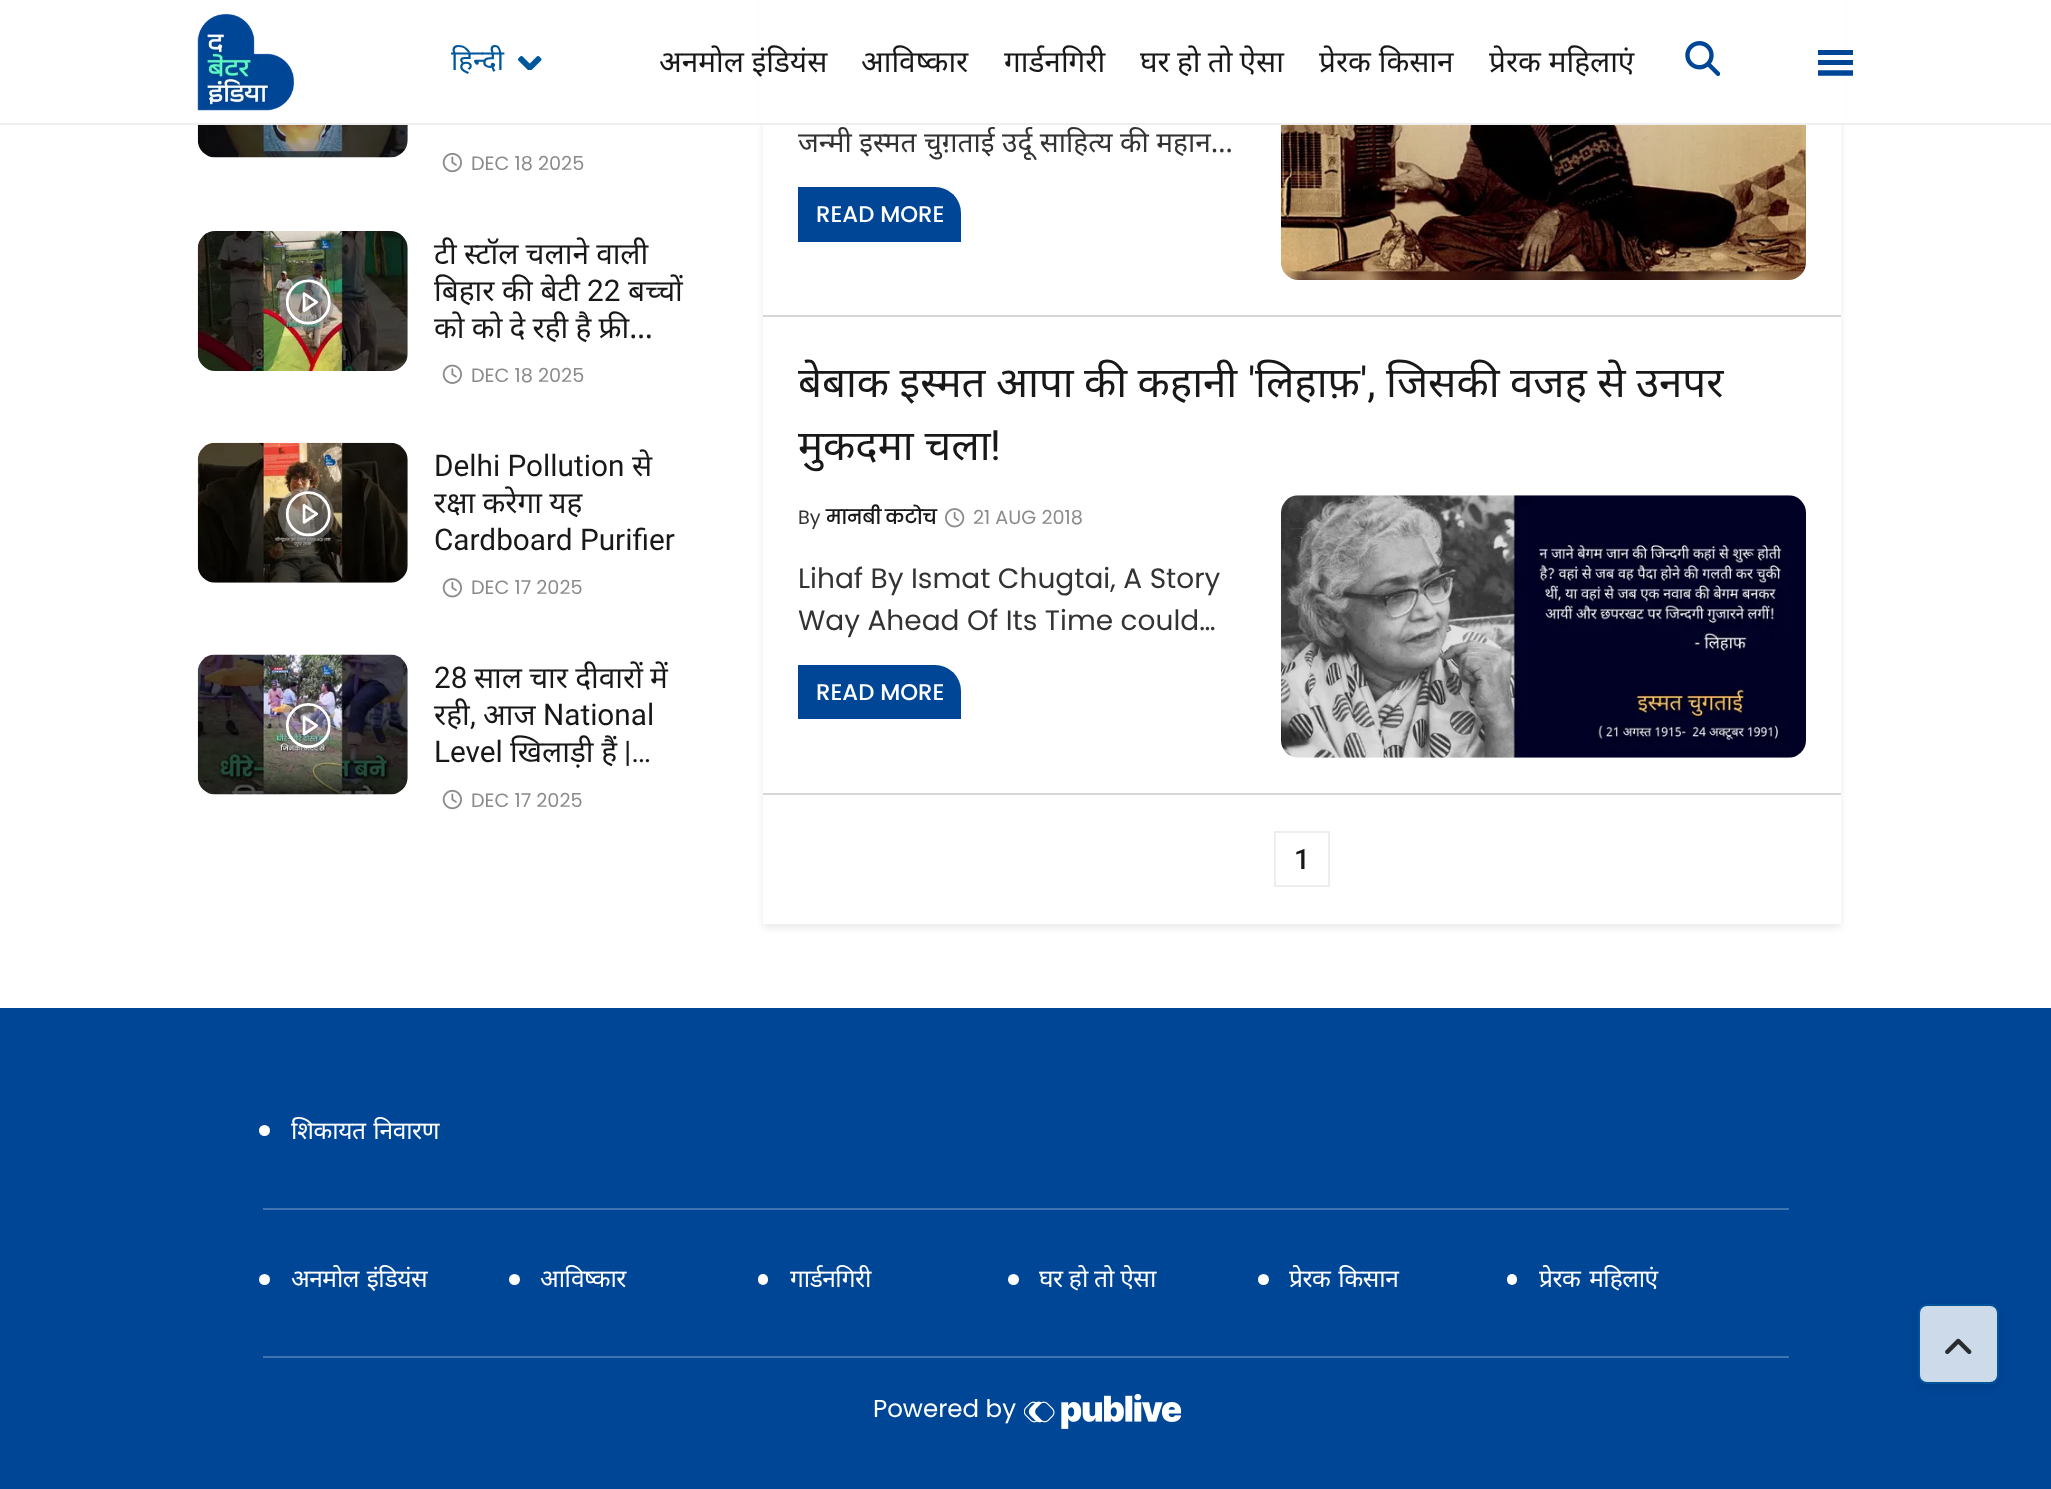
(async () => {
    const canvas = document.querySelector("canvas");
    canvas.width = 2051;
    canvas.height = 1489;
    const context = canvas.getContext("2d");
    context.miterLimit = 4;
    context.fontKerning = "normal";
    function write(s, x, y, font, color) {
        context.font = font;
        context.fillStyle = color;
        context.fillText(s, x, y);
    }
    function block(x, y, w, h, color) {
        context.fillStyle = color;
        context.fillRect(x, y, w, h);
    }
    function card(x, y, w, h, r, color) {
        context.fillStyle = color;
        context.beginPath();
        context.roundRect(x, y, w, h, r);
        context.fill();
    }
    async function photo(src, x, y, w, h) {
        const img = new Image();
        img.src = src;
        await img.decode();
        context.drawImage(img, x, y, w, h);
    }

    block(0, 0, 2051, 1489, "rgb(255, 255, 255)");
    context.save();
    context.beginPath();
    context.moveTo(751, 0);
    context.lineTo(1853, 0);
    context.lineTo(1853, 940);
    context.lineTo(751, 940);
    context.closePath();
    context.moveTo(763, -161);
    context.lineTo(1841, -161);
    context.lineTo(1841, 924);
    context.lineTo(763, 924);
    context.closePath();
    context.clip("evenodd");
    context.fillStyle = "rgba(0, 0, 0, 0.08)";
    context.filter = "blur(3.5px)";
    context.beginPath();
    context.rect(763, -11, 1078, 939);
    context.fill();
    context.filter = "none";
    context.restore();
    block(759, 0, 1086, 123, "rgb(255, 255, 255)");
    block(0, 123, 2051, 2, "rgb(238, 238, 238)");
    await photo("media/1.png", 197, 13, 97, 98);
    write("हिन्दी", 451, 70, "28px Noto Sans", "rgb(1, 87, 155)");
    await photo("media/2.png", 518, 56, 24, 14);
    write("अनमोल इंडियंस", 659, 72, "29.75px Noto Sans", "rgb(24, 24, 24)");
    write("आविष्कार", 861, 72, "29.75px Noto Sans", "rgb(24, 24, 24)");
    write("गार्डनगिरी", 1004, 72, "29.75px Noto Sans", "rgb(24, 24, 24)");
    context.wordSpacing = "-0.5px";
    write("घर हो तो ऐसा", 1140, 72, "29.75px Noto Sans", "rgb(24, 24, 24)");
    context.wordSpacing = "0px";
    write("प्रेरक किसान", 1319, 72, "29.75px Noto Sans", "rgb(24, 24, 24)");
    write("प्रेरक महिलाएं", 1489, 72, "29.75px Noto Sans", "rgb(24, 24, 24)");
    await photo("media/3.png", 1685, 41, 35, 35);
    block(1818, 50, 35, 5, "rgb(0, 70, 151)");
    block(1818, 60, 35, 5, "rgb(0, 70, 151)");
    context.beginPath();
    context.moveTo(1818, 73);
    context.lineTo(1853, 73);
    context.strokeStyle = "rgb(0, 70, 151)";
    context.lineWidth = 5.3;
    context.stroke();
    await photo("media/4.png", 197, 125, 211, 33);
    await photo("media/5.png", 442, 152, 20, 21);
    write("DEC 18 2025", 471, 170, "19.25px Poppins", "rgb(139, 139, 139)");
    await photo("media/6.png", 197, 231, 211, 140);
    context.fillStyle = "rgba(138, 138, 138, 0.5)";
    context.beginPath();
    context.arc(306, 303, 28, 0, Math.PI * 2);
    context.fill();
    await photo("media/7.png", 285, 279, 46, 46);
    context.save();
    context.beginPath();
    context.rect(434, 231, 250, 116);
    context.clip();
    context.wordSpacing = "-0.5px";
    write("टी स्टॉल चलाने वाली", 434, 264, "29.75px Noto Sans", "rgb(24, 24, 24)");
    context.restore();
    write("बिहार की बेटी", 434, 301, "29.75px Noto Sans", "rgb(24, 24, 24)");
    write("22", 587, 301, "29.75px Roboto", "rgb(24, 24, 24)");
    write("बच्चों", 628, 301, "29.75px Noto Sans", "rgb(24, 24, 24)");
    context.save();
    context.beginPath();
    context.rect(434, 231, 250, 116);
    context.clip();
    context.wordSpacing = "-0.5px";
    write("को को दे रही है फ्री…", 434, 338, "29.75px Noto Sans", "rgb(24, 24, 24)");
    context.restore();
    await photo("media/8.png", 442, 364, 20, 20);
    write("DEC 18 2025", 471, 382, "19.25px Poppins", "rgb(139, 139, 139)");
    await photo("media/9.png", 197, 442, 211, 141);
    context.fillStyle = "rgba(138, 138, 138, 0.5)";
    context.beginPath();
    context.arc(306, 515, 28, 0, Math.PI * 2);
    context.fill();
    await photo("media/10.png", 285, 491, 46, 46);
    write("Delhi Pollution", 434, 476, "29.75px Roboto", "rgb(24, 24, 24)");
    write("से", 632, 476, "29.75px Noto Sans", "rgb(24, 24, 24)");
    context.wordSpacing = "-0.5px";
    write("रक्षा करेगा यह", 434, 513, "29.75px Noto Sans", "rgb(24, 24, 24)");
    context.wordSpacing = "0px";
    write("Cardboard Purifier", 434, 550, "29.75px Roboto", "rgb(24, 24, 24)");
    await photo("media/11.png", 442, 578, 20, 20);
    write("DEC 17 2025", 471, 594, "19.25px Poppins", "rgb(139, 139, 139)");
    await photo("media/12.png", 197, 654, 211, 141);
    context.fillStyle = "rgba(138, 138, 138, 0.5)";
    context.beginPath();
    context.arc(306, 726, 28, 0, Math.PI * 2);
    context.fill();
    await photo("media/13.png", 285, 703, 46, 45);
    write("28", 434, 688, "29.75px Roboto", "rgb(24, 24, 24)");
    context.wordSpacing = "-0.5px";
    write("साल चार दीवारों में", 474, 688, "29.75px Noto Sans", "rgb(24, 24, 24)");
    context.wordSpacing = "0px";
    write("रही", 434, 725, "29.75px Noto Sans", "rgb(24, 24, 24)");
    write(",", 470, 725, "29.75px Roboto", "rgb(24, 24, 24)");
    write("आज", 483, 725, "29.75px Noto Sans", "rgb(24, 24, 24)");
    write("National", 543, 725, "29.75px Roboto", "rgb(24, 24, 24)");
    write("Level", 434, 762, "29.75px Roboto", "rgb(24, 24, 24)");
    write("खिलाड़ी हैं", 510, 762, "29.75px Noto Sans", "rgb(24, 24, 24)");
    write("|…", 624, 762, "29.75px Roboto", "rgb(24, 24, 24)");
    await photo("media/5.png", 442, 789, 20, 21);
    write("DEC 17 2025", 471, 807, "19.25px Poppins", "rgb(139, 139, 139)");
    block(763, 315, 1078, 2, "rgb(214, 214, 214)");
    context.wordSpacing = "0.25px";
    write("जन्मी इस्मत चुग़ताई उर्दू साहित्य की महान…", 798, 152, "28px Noto Sans", "rgb(51, 51, 51)");
    await photo("media/14.png", 1281, 125, 525, 155);
    context.fillStyle = "rgb(0, 70, 151)";
    context.beginPath();
    context.roundRect(798, 187, 163, 55, [0, 26, 0, 0]);
    context.fill();
    context.wordSpacing = "0px";
    write("READ MORE", 816, 222, "500 22.75px Poppins", "rgb(255, 255, 255)");
    block(763, 793, 1078, 2, "rgb(214, 214, 214)");
    context.save();
    context.beginPath();
    context.rect(798, 352, 1008, 126);
    context.clip();
    context.wordSpacing = "-0.5px";
    write("बेबाक इस्मत आपा की कहानी", 798, 397, "42px Noto Sans", "rgb(24, 24, 24)");
    context.restore();
    write("'", 1248, 397, "42px Roboto", "rgb(24, 24, 24)");
    write("लिहाफ़", 1255, 397, "42px Noto Sans", "rgb(24, 24, 24)");
    write("',", 1360, 397, "42px Roboto", "rgb(24, 24, 24)");
    context.wordSpacing = "-0.5px";
    write("जिसकी वजह से उनपर", 1386, 397, "42px Noto Sans", "rgb(24, 24, 24)");
    context.save();
    context.beginPath();
    context.rect(798, 352, 1008, 126);
    context.clip();
    context.wordSpacing = "0px";
    write("मुकदमा चला", 798, 460, "42px Noto Sans", "rgb(24, 24, 24)");
    context.restore();
    context.wordSpacing = "0px";
    write("!", 990, 460, "42px Roboto", "rgb(24, 24, 24)");
    write("By", 798, 524, "19.25px Poppins", "rgb(51, 51, 51)");
    context.wordSpacing = "-1px";
    write("मानबी कटोच", 826, 524, "bold 19.25px Poppins", "rgb(24, 24, 24)");
    await photo("media/15.png", 945, 508, 20, 20);
    context.wordSpacing = "0px";
    write("21 AUG 2018", 973, 524, "19.25px Poppins", "rgb(139, 139, 139)");
    await photo("media/16.png", 1281, 495, 525, 263);
    write("Lihaf By Ismat Chugtai, A Story", 798, 588, "28px Poppins", "rgb(51, 51, 51)");
    write("Way Ahead Of Its Time could…", 798, 630, "28px Poppins", "rgb(51, 51, 51)");
    context.fillStyle = "rgb(0, 70, 151)";
    context.beginPath();
    context.roundRect(798, 665, 163, 54, [0, 26, 0, 0]);
    context.fill();
    write("READ MORE", 816, 700, "500 22.75px Poppins", "rgb(255, 255, 255)");
    context.strokeStyle = "rgb(238, 238, 238)";
    context.lineWidth = 2;
    context.strokeRect(1275, 832, 54, 54);
    write("1", 1294, 869, "500 28px Roboto", "rgb(24, 24, 24)");
    block(0, 1008, 2051, 481, "rgb(0, 70, 151)");
    context.fillStyle = "rgb(255, 255, 255)";
    context.beginPath();
    context.arc(264.5, 1130.5, 5.5, 0, Math.PI * 2);
    context.fill();
    context.letterSpacing = "-0.5px";
    context.wordSpacing = "2px";
    write("शिकायत निवारण", 291, 1139, "24.5px Noto Sans", "rgb(255, 255, 255)");
    block(263, 1208, 1526, 2, "rgb(64, 116, 177)");
    context.fillStyle = "rgb(255, 255, 255)";
    context.beginPath();
    context.arc(264.5, 1279.5, 5.5, 0, Math.PI * 2);
    context.fill();
    write("अनमोल इंडियंस", 291, 1287, "24.5px Noto Sans", "rgb(255, 255, 255)");
    context.beginPath();
    context.arc(514.5, 1279.5, 5.5, 0, Math.PI * 2);
    context.fill();
    context.wordSpacing = "0px";
    write("आविष्कार", 540, 1287, "24.5px Noto Sans", "rgb(255, 255, 255)");
    card(758, 1274, 10, 11, 5, "rgb(255, 255, 255)");
    write("गार्डनगिरी", 790, 1287, "24.5px Noto Sans", "rgb(255, 255, 255)");
    context.beginPath();
    context.arc(1013.5, 1279.5, 5.5, 0, Math.PI * 2);
    context.fill();
    context.wordSpacing = "0.5px";
    write("घर हो तो ऐसा", 1039, 1287, "24.5px Noto Sans", "rgb(255, 255, 255)");
    context.beginPath();
    context.arc(1263.5, 1279.5, 5.5, 0, Math.PI * 2);
    context.fill();
    context.wordSpacing = "2px";
    write("प्रेरक किसान", 1289, 1287, "24.5px Noto Sans", "rgb(255, 255, 255)");
    card(1507, 1274, 10, 11, 5, "rgb(255, 255, 255)");
    context.wordSpacing = "3px";
    write("प्रेरक महिलाएं", 1539, 1287, "24.5px Noto Sans", "rgb(255, 255, 255)");
    block(263, 1356, 1526, 2, "rgb(64, 116, 177)");
    context.letterSpacing = "0px";
    context.wordSpacing = "0px";
    write("Powered by", 873, 1417, "24.5px Poppins", "rgb(255, 255, 255)");
    await photo("media/17.png", 1024, 1393, 157, 36);
    context.fillStyle = "rgba(0, 14, 30, 0.1)";
    context.filter = "blur(5px)";
    context.beginPath();
    context.roundRect(1918, 1307, 81, 81, 9);
    context.fill();
    context.filter = "none";
    context.fillStyle = "rgb(204, 218, 234)";
    context.beginPath();
    context.roundRect(1919, 1305, 79, 78, 8);
    context.fill();
    context.strokeStyle = "rgb(1, 84, 154)";
    context.stroke();
    await photo("media/18.png", 1945, 1338, 27, 16);
})();
